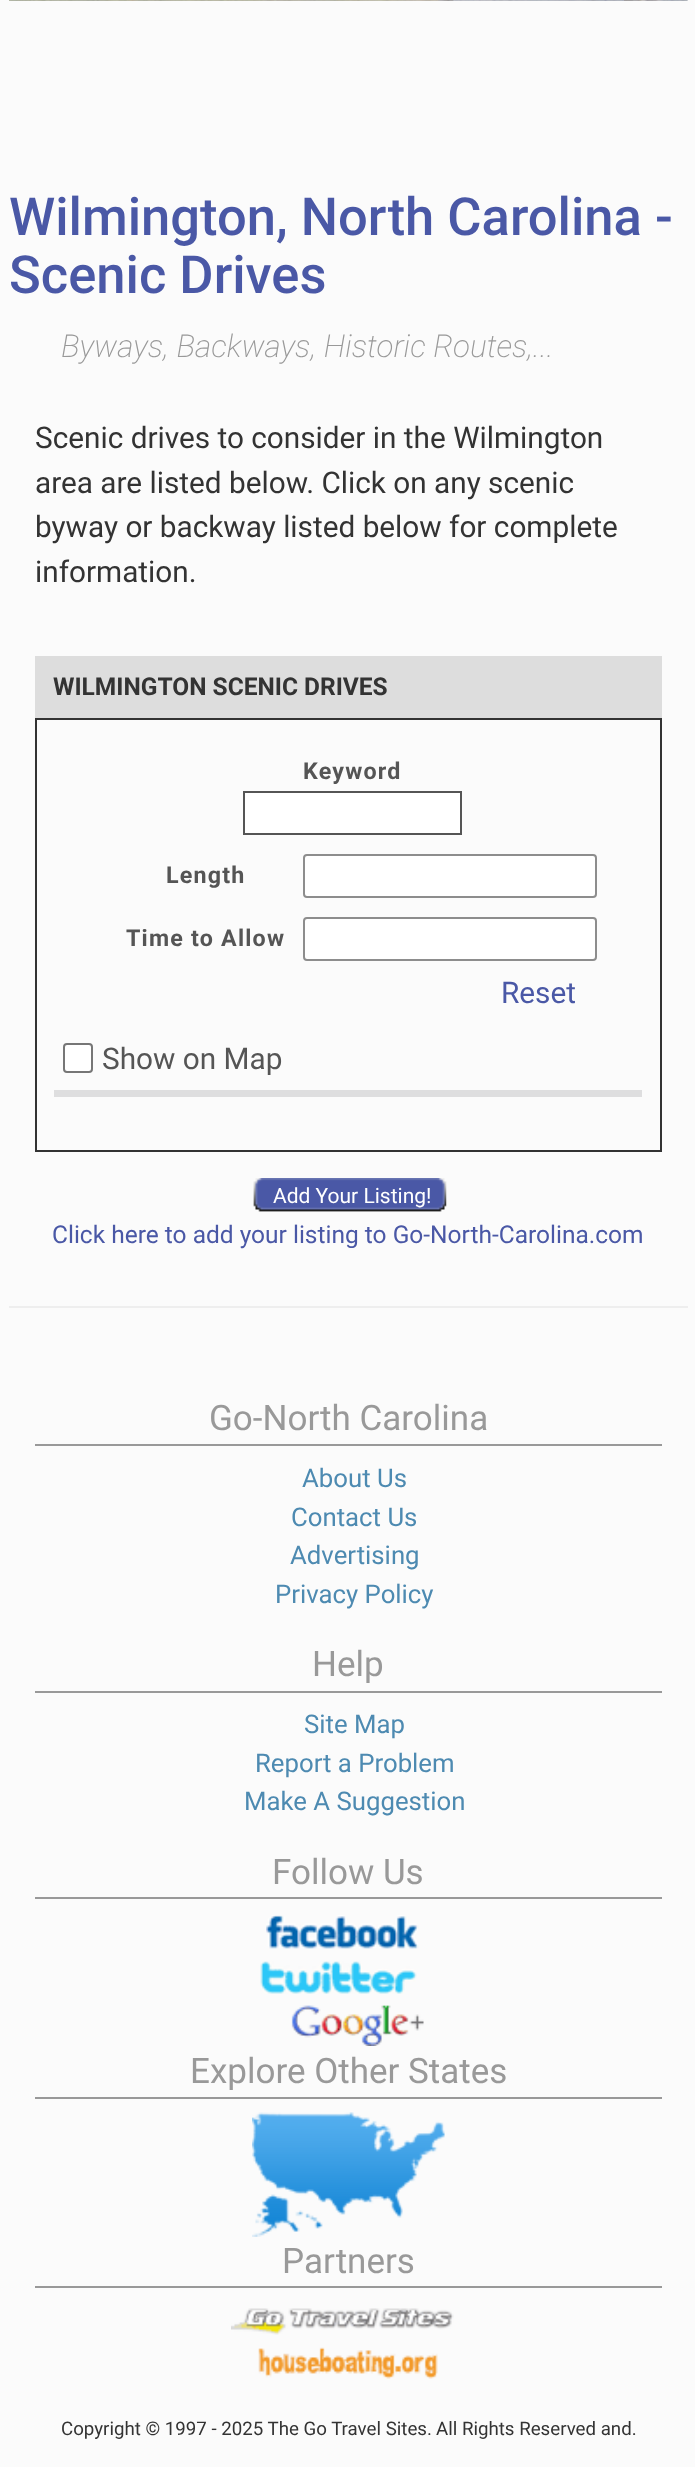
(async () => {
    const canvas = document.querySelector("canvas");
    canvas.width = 695;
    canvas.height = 2467;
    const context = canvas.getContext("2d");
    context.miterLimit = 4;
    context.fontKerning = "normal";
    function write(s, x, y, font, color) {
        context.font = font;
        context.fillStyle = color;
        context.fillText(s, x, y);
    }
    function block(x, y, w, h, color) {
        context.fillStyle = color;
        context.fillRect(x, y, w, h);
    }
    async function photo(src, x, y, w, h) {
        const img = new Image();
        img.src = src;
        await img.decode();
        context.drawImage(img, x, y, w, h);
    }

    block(0, 0, 695, 2467, "rgb(251, 251, 251)");
    await photo("media/1.png", 9, 0, 679, 1);
    await photo("media/2.png", 9, 0, 679, 1);
    await photo("media/3.png", 9, 0, 679, 1);
    write("Wilmington, North Carolina -", 9, 235, "500 52.5px Roboto", "rgb(74, 88, 166)");
    write("Scenic Drives", 9, 293, "500 52.5px Roboto", "rgb(74, 88, 166)");
    write("Byways, Backways, Historic Routes,...", 61, 357, "italic 200 31.5px Roboto", "rgb(153, 153, 153)");
    write("Scenic drives to consider in the Wilmington", 35, 448, "29.75px Roboto", "rgb(51, 51, 51)");
    write("area are listed below. Click on any scenic", 35, 493, "29.75px Roboto", "rgb(51, 51, 51)");
    write("byway or backway listed below for complete", 35, 537, "29.75px Roboto", "rgb(51, 51, 51)");
    write("information.", 35, 582, "29.75px Roboto", "rgb(51, 51, 51)");
    block(35, 656, 627, 62, "rgb(221, 221, 221)");
    write("WILMINGTON SCENIC DRIVES", 53, 695, "bold 24.5px Roboto", "rgb(51, 51, 51)");
    context.strokeStyle = "rgb(51, 51, 51)";
    context.lineWidth = 2;
    context.strokeRect(36, 719, 625, 432);
    context.letterSpacing = "1.2px";
    write("Keyword", 303, 779, "bold 23.25px Roboto", "rgb(85, 85, 85)");
    context.fillStyle = "rgb(255, 255, 255)";
    context.beginPath();
    context.rect(244, 792, 217, 42);
    context.fill();
    context.strokeStyle = "rgb(85, 85, 85)";
    context.stroke();
    write("Length", 166, 883, "bold 23.25px Roboto", "rgb(85, 85, 85)");
    context.fillStyle = "rgb(255, 255, 255)";
    context.beginPath();
    context.roundRect(304, 855, 292, 42, 3);
    context.fill();
    context.strokeStyle = "rgb(141, 141, 141)";
    context.stroke();
    write("Time to Allow", 126, 946, "bold 23.25px Roboto", "rgb(85, 85, 85)");
    context.fillStyle = "rgb(255, 255, 255)";
    context.beginPath();
    context.roundRect(304, 918, 292, 42, 3);
    context.fill();
    context.stroke();
    context.letterSpacing = "0px";
    write("Reset", 501, 1003, "29.75px Roboto", "rgb(74, 88, 166)");
    block(54, 1090, 588, 7, "rgb(222, 222, 223)");
    context.fillStyle = "rgb(255, 255, 255)";
    context.beginPath();
    context.roundRect(64, 1044, 28, 28, 3);
    context.fill();
    context.strokeStyle = "rgb(118, 118, 118)";
    context.stroke();
    write("Show on Map", 102, 1069, "29.75px Roboto", "rgb(85, 85, 85)");
    await photo("media/4.png", 253, 1178, 194, 34);
    write("Add Your Listing!", 273, 1203, "21px Roboto", "rgb(255, 255, 255)");
    write("Click here to add your listing to Go-North-Carolina.com", 52, 1243, "24.5px Roboto", "rgb(74, 88, 166)");
    block(9, 1306, 679, 2, "rgb(238, 238, 238)");
    block(35, 1444, 627, 2, "rgb(153, 153, 153)");
    write("Go-North Carolina", 209, 1430, "35px Roboto", "rgb(153, 153, 153)");
    write("About Us", 302, 1487, "25.75px Roboto", "rgb(77, 138, 177)");
    write("Contact Us", 291, 1526, "25.75px Roboto", "rgb(77, 138, 177)");
    write("Advertising", 290, 1564, "25.75px Roboto", "rgb(77, 138, 177)");
    write("Privacy Policy", 275, 1603, "25.75px Roboto", "rgb(77, 138, 177)");
    block(35, 1691, 627, 2, "rgb(153, 153, 153)");
    write("Help", 312, 1676, "35px Roboto", "rgb(153, 153, 153)");
    write("Site Map", 304, 1733, "25.75px Roboto", "rgb(77, 138, 177)");
    write("Report a Problem", 255, 1772, "25.75px Roboto", "rgb(77, 138, 177)");
    write("Make A Suggestion", 244, 1810, "25.75px Roboto", "rgb(77, 138, 177)");
    block(35, 1897, 627, 2, "rgb(153, 153, 153)");
    write("Follow Us", 272, 1884, "35px Roboto", "rgb(153, 153, 153)");
    await photo("media/5.png", 266, 1915, 153, 34);
    await photo("media/6.png", 260, 1961, 157, 33);
    await photo("media/7.png", 291, 2005, 133, 41);
    block(35, 2097, 627, 2, "rgb(153, 153, 153)");
    write("Explore Other States", 190, 2083, "35px Roboto", "rgb(153, 153, 153)");
    await photo("media/8.png", 252, 2112, 193, 125);
    block(35, 2286, 627, 2, "rgb(153, 153, 153)");
    write("Partners", 282, 2273, "35px Roboto", "rgb(153, 153, 153)");
    await photo("media/9.png", 231, 2308, 223, 27);
    await photo("media/10.png", 258, 2347, 180, 32);
    write("Copyright © 1997 - 2025 The Go Travel Sites.", 61, 2435, "18.7px Roboto", "rgb(51, 51, 51)");
    write("All Rights Reserved and.", 436, 2435, "18.7px Roboto", "rgb(51, 51, 51)");
})();
